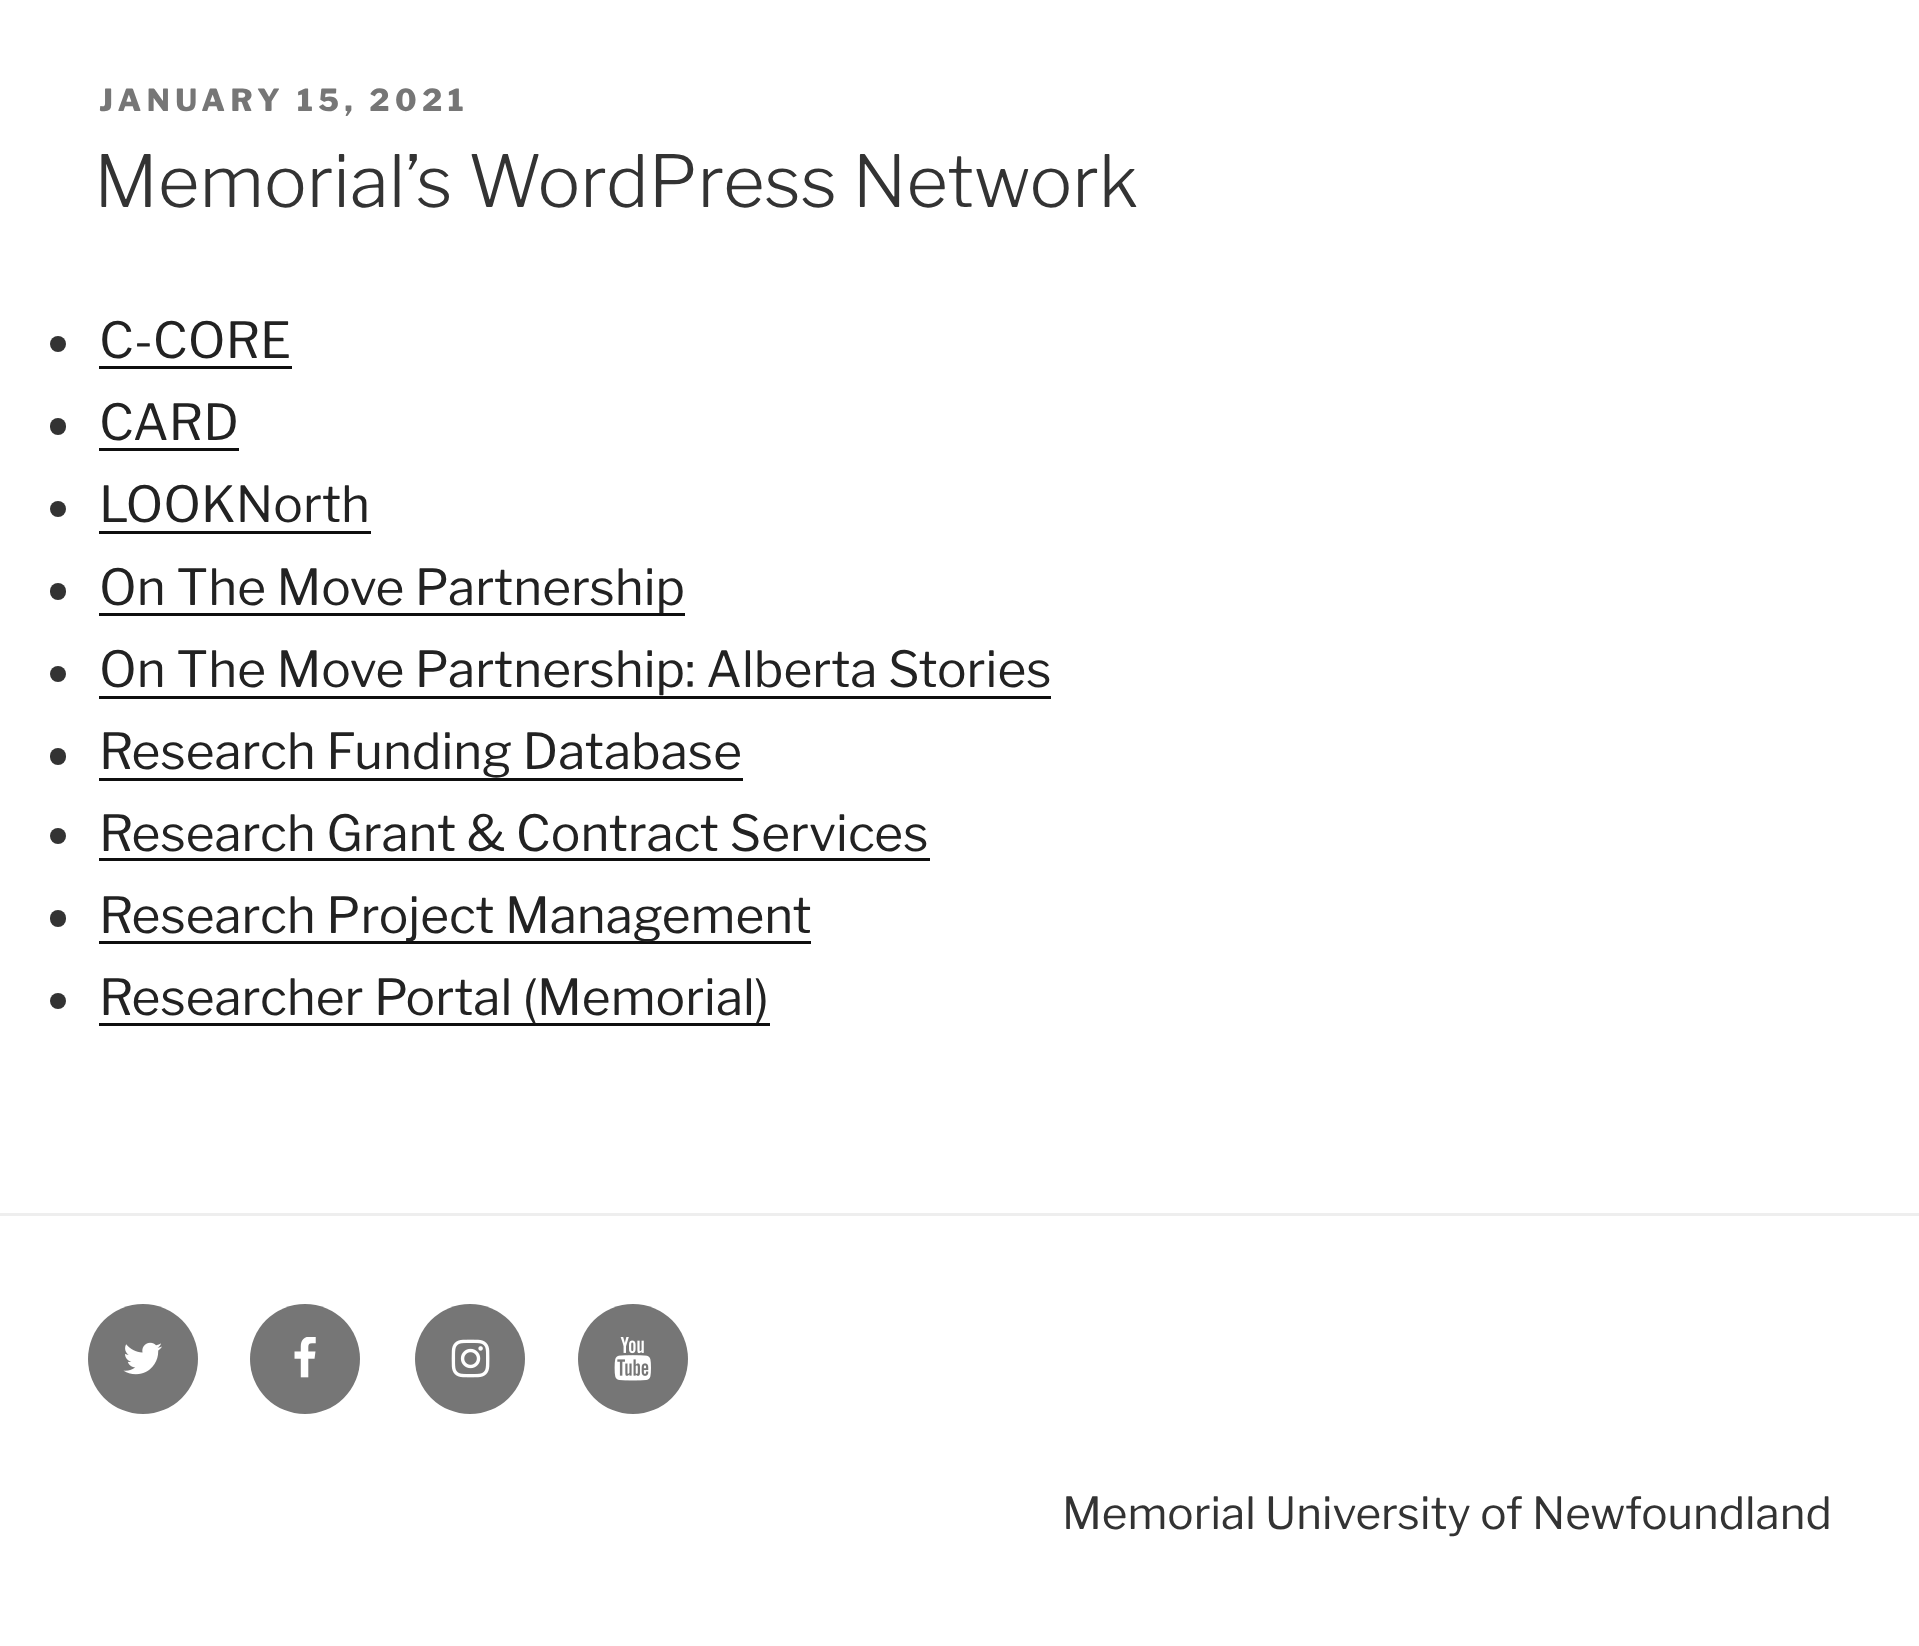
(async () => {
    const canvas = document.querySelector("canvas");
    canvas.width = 1919;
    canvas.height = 1646;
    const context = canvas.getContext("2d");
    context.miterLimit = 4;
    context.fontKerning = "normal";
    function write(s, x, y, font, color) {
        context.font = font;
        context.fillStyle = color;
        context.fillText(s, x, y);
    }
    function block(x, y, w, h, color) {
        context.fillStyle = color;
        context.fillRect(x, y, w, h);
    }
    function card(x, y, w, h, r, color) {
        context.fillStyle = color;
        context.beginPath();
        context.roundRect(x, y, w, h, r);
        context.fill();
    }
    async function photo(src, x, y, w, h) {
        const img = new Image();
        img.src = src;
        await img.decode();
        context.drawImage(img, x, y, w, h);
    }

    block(0, 0, 1919, 1646, "rgb(255, 255, 255)");
    context.letterSpacing = "5.5px";
    write("JANUARY 15, 2021", 99, 111, "100 30.25px Libre Franklin", "rgb(118, 118, 118)");
    context.letterSpacing = "0px";
    write("Memorial’s WordPress Network", 94, 207, "100 71.5px 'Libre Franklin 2'", "rgb(51, 51, 51)");
    context.beginPath();
    context.arc(58, 344, 8, 0, Math.PI * 2);
    context.fill();
    write("C-CORE", 99, 358, "100 49.5px 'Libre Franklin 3'", "rgb(34, 34, 34)");
    block(99, 366, 193, 3, "rgb(15, 15, 15)");
    card(50, 418, 16, 17, 8, "rgb(51, 51, 51)");
    write("CARD", 99, 440, "100 49.5px 'Libre Franklin 3'", "rgb(34, 34, 34)");
    block(99, 448, 140, 3, "rgb(15, 15, 15)");
    context.fillStyle = "rgb(51, 51, 51)";
    context.beginPath();
    context.arc(58, 509, 8, 0, Math.PI * 2);
    context.fill();
    write("LOOKNorth", 99, 522, "100 49.5px 'Libre Franklin 3'", "rgb(34, 34, 34)");
    block(99, 531, 272, 3, "rgb(15, 15, 15)");
    card(50, 583, 16, 17, 8, "rgb(51, 51, 51)");
    block(99, 613, 586, 3, "rgb(15, 15, 15)");
    write("On The Move Partnership", 99, 605, "100 49.5px 'Libre Franklin 3'", "rgb(34, 34, 34)");
    context.fillStyle = "rgb(51, 51, 51)";
    context.beginPath();
    context.arc(58, 674, 8, 0, Math.PI * 2);
    context.fill();
    write("On The Move Partnership: Alberta Stories", 99, 687, "100 49.5px 'Libre Franklin 3'", "rgb(34, 34, 34)");
    block(99, 696, 952, 3, "rgb(15, 15, 15)");
    card(50, 748, 16, 17, 8, "rgb(51, 51, 51)");
    write("Research Funding Database", 99, 769, "100 49.5px 'Libre Franklin 3'", "rgb(34, 34, 34)");
    block(99, 778, 644, 3, "rgb(15, 15, 15)");
    context.fillStyle = "rgb(51, 51, 51)";
    context.beginPath();
    context.arc(58, 836, 8, 0, Math.PI * 2);
    context.fill();
    write("Research Grant & Contract Services", 99, 851, "100 49.5px 'Libre Franklin 3'", "rgb(34, 34, 34)");
    block(99, 858, 831, 3, "rgb(15, 15, 15)");
    card(50, 910, 16, 17, 8, "rgb(51, 51, 51)");
    block(99, 941, 712, 3, "rgb(15, 15, 15)");
    write("Research Project Management", 99, 933, "100 49.5px 'Libre Franklin 3'", "rgb(34, 34, 34)");
    context.fillStyle = "rgb(51, 51, 51)";
    context.beginPath();
    context.arc(58, 1001, 8, 0, Math.PI * 2);
    context.fill();
    block(99, 1023, 671, 3, "rgb(15, 15, 15)");
    write("Researcher Portal (Memorial)", 99, 1015, "100 49.5px 'Libre Franklin 3'", "rgb(34, 34, 34)");
    block(0, 1213, 1919, 3, "rgb(238, 238, 238)");
    context.fillStyle = "rgb(118, 118, 118)";
    context.beginPath();
    context.arc(143, 1359, 55, 0, Math.PI * 2);
    context.fill();
    await photo("media/1.png", 123, 1342, 39, 33);
    context.beginPath();
    context.arc(305, 1359, 55, 0, Math.PI * 2);
    context.fill();
    await photo("media/2.png", 294, 1337, 22, 41);
    context.beginPath();
    context.arc(470, 1359, 55, 0, Math.PI * 2);
    context.fill();
    await photo("media/3.png", 451, 1339, 39, 39);
    context.beginPath();
    context.arc(633, 1359, 55, 0, Math.PI * 2);
    context.fill();
    await photo("media/4.png", 614, 1337, 37, 44);
    write("Memorial University of Newfoundland", 1062, 1529, "100 44px 'Libre Franklin 3'", "rgb(51, 51, 51)");
})();
